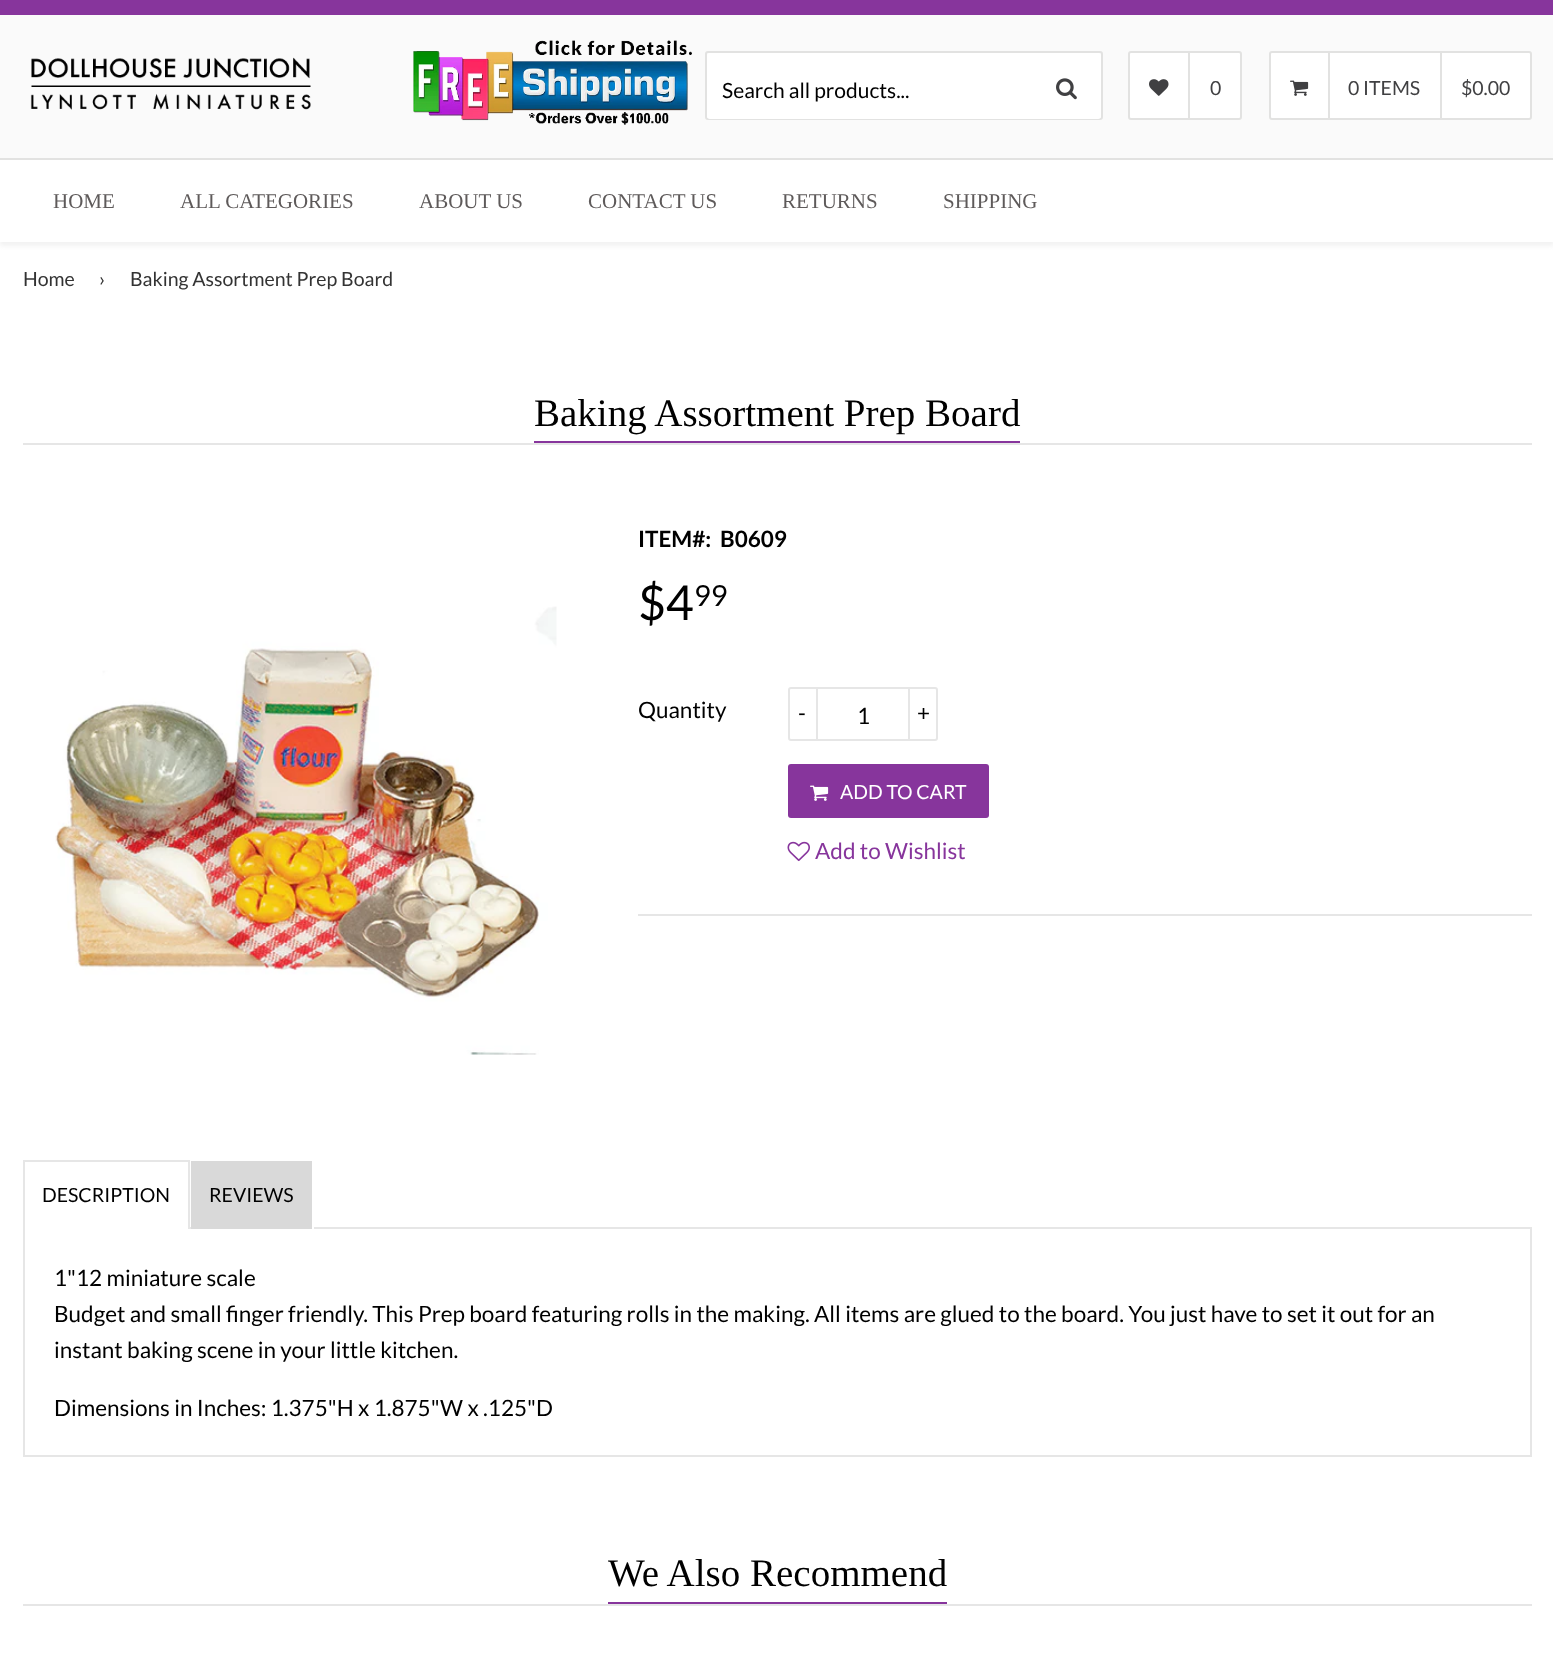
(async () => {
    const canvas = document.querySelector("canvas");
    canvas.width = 1553;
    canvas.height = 1658;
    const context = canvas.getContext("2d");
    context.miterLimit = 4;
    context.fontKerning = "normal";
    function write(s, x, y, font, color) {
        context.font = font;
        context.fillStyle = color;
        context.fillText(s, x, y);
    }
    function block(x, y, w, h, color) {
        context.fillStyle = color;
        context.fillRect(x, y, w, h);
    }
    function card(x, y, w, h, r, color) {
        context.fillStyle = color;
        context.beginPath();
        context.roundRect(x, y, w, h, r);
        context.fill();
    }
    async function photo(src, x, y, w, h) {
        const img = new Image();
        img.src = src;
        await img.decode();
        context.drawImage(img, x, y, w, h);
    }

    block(0, 0, 1553, 1658, "rgb(255, 255, 255)");
    block(0, 0, 1553, 15, "rgb(135, 53, 156)");
    block(0, 15, 1553, 143, "rgb(250, 250, 250)");
    await photo("media/1.png", 30, 57, 281, 53);
    await photo("media/2.png", 413, 40, 279, 85);
    context.beginPath();
    context.roundRect(706, 52, 396, 67, 2);
    context.strokeStyle = "rgb(226, 226, 225)";
    context.lineWidth = 2;
    context.stroke();
    card(707, 53, 394, 66, 3, "rgb(255, 255, 255)");
    write("Search all products...", 722, 98, "21px Lato", "rgb(0, 0, 0)");
    await photo("media/3.png", 1056, 78, 21, 22);
    context.fillStyle = "rgb(255, 255, 255)";
    context.beginPath();
    context.roundRect(1129, 52, 112, 67, 2);
    context.fill();
    context.stroke();
    await photo("media/4.png", 1149, 79, 20, 17);
    block(1188, 53, 2, 66, "rgb(226, 226, 225)");
    write("0", 1210, 95, "19.5px Lato", "rgb(64, 64, 66)");
    context.fillStyle = "rgb(255, 255, 255)";
    context.beginPath();
    context.roundRect(1270, 52, 261, 67, 2);
    context.fill();
    context.stroke();
    await photo("media/5.png", 1290, 80, 19, 16);
    block(1328, 53, 2, 66, "rgb(226, 226, 225)");
    write("0 ITEMS", 1348, 95, "19.5px Lato", "rgb(64, 64, 66)");
    block(1440, 53, 2, 66, "rgb(226, 226, 225)");
    write("$0.00", 1461, 95, "19.5px Lato", "rgb(64, 64, 66)");
    context.fillStyle = "rgb(242, 242, 242)";
    context.filter = "blur(2px)";
    context.beginPath();
    context.rect(0, 162, 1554, 84);
    context.fill();
    context.filter = "none";
    block(0, 160, 1553, 82, "rgb(255, 255, 255)");
    block(0, 158, 1553, 2, "rgb(226, 226, 225)");
    write("HOME", 53, 208, "21px Liberation Serif", "rgb(94, 90, 90)");
    write("ALL CATEGORIES", 180, 208, "21px Liberation Serif", "rgb(94, 90, 90)");
    write("ABOUT US", 419, 208, "21px Liberation Serif", "rgb(94, 90, 90)");
    write("CONTACT US", 588, 208, "21px Liberation Serif", "rgb(94, 90, 90)");
    write("RETURNS", 782, 208, "21px Liberation Serif", "rgb(94, 90, 90)");
    write("SHIPPING", 943, 208, "21px Liberation Serif", "rgb(94, 90, 90)");
    write("Home", 23, 286, "19.5px Lato", "rgb(51, 51, 51)");
    write("›", 99, 286, "19.5px Lato", "rgb(51, 51, 51)");
    write("Baking Assortment Prep Board", 130, 286, "19.5px Lato", "rgb(51, 51, 51)");
    block(23, 443, 1509, 2, "rgb(230, 230, 230)");
    block(534, 441, 486, 2, "rgb(135, 53, 156)");
    write("Baking Assortment Prep Board", 534, 426, "39px Liberation Serif", "rgb(0, 0, 0)");
    await photo("media/6.png", 55, 606, 502, 449);
    write("ITEM#:", 638, 547, "bold 22.5px Lato", "rgb(0, 0, 0)");
    write("B0609", 720, 547, "bold 22.5px Lato", "rgb(0, 0, 0)");
    write("$4", 638, 620, "48px Lato", "rgb(0, 0, 0)");
    write("99", 694, 606, "29px Lato", "rgb(0, 0, 0)");
    write("Quantity", 638, 718, "22.5px Lato", "rgb(0, 0, 0)");
    context.beginPath();
    context.roundRect(789, 688, 148, 52, 2);
    context.strokeStyle = "rgb(230, 230, 230)";
    context.stroke();
    block(816, 687, 2, 54, "rgb(230, 230, 230)");
    write("-", 798, 721, "22.5px Lato", "rgb(0, 0, 0)");
    write("1", 857, 724, "22.5px Lato", "rgb(0, 0, 0)");
    block(908, 687, 2, 54, "rgb(230, 230, 230)");
    write("+", 917, 721, "22.5px Lato", "rgb(0, 0, 0)");
    card(788, 764, 201, 54, 3, "rgb(135, 53, 156)");
    await photo("media/7.png", 810, 785, 19, 16);
    write("ADD TO CART", 840, 799, "19.5px Lato", "rgb(255, 255, 255)");
    await photo("media/8.png", 787, 841, 23, 21);
    write("Add to Wishlist", 815, 859, "22.5px Lato", "rgb(135, 53, 156)");
    block(638, 914, 894, 2, "rgb(230, 230, 230)");
    block(190, 1227, 1342, 2, "rgb(230, 230, 230)");
    block(23, 1160, 166, 2, "rgb(230, 230, 230)");
    block(188, 1160, 2, 69, "rgb(230, 230, 230)");
    block(23, 1160, 2, 69, "rgb(230, 230, 230)");
    write("DESCRIPTION", 42, 1202, "19.5px Lato", "rgb(0, 0, 0)");
    block(191, 1161, 121, 68, "rgb(217, 217, 217)");
    block(312, 1227, 2, 2, "rgb(255, 255, 255)");
    write("REVIEWS", 209, 1202, "19.5px Lato", "rgb(0, 0, 0)");
    block(1530, 1229, 2, 228, "rgb(230, 230, 230)");
    block(23, 1455, 1509, 2, "rgb(230, 230, 230)");
    block(23, 1229, 2, 228, "rgb(230, 230, 230)");
    write("1\"12 miniature scale", 54, 1286, "22.5px Lato", "rgb(0, 0, 0)");
    write("Budget and small finger friendly. This Prep board featuring rolls in the making. All items are glued to the board. You just have to set it out for an", 54, 1322, "22.5px Lato", "rgb(0, 0, 0)");
    write("instant baking scene in your little kitchen.", 54, 1358, "22.5px Lato", "rgb(0, 0, 0)");
    write("Dimensions in Inches: 1.375\"H x 1.875\"W x .125\"D", 54, 1416, "22.5px Lato", "rgb(0, 0, 0)");
    block(23, 1604, 1509, 2, "rgb(230, 230, 230)");
    block(608, 1602, 339, 2, "rgb(135, 53, 156)");
    write("We Also Recommend", 608, 1586, "39px Liberation Serif", "rgb(0, 0, 0)");
})();
